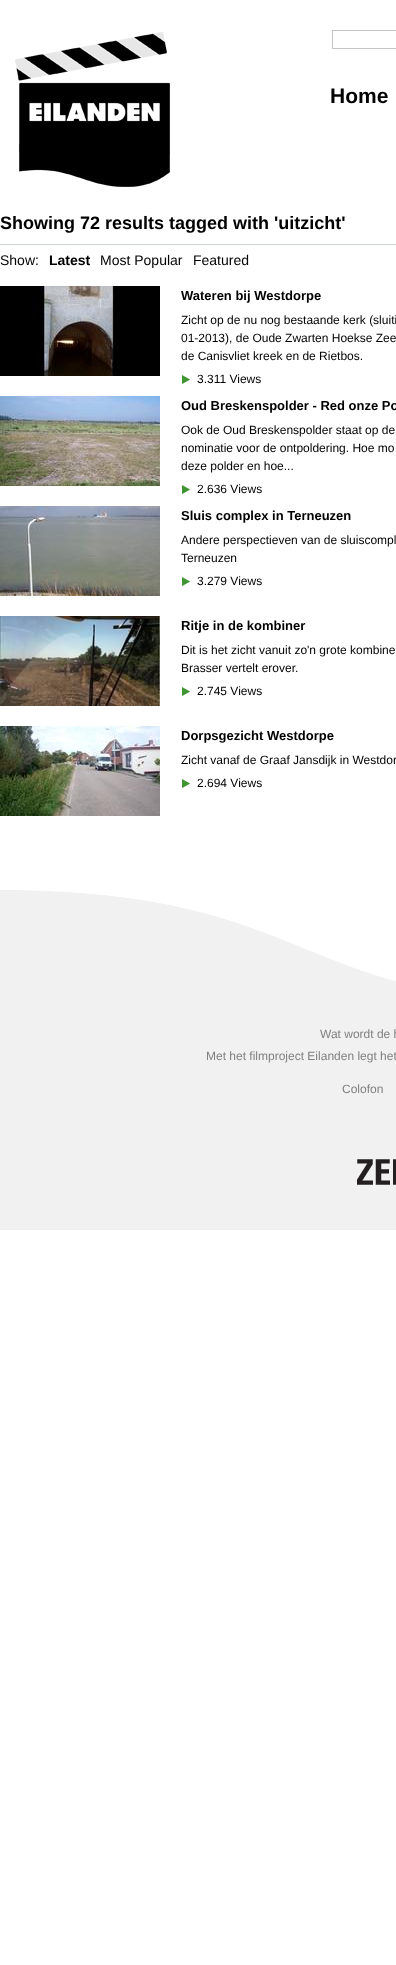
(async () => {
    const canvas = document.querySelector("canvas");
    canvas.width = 396;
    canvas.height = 1965;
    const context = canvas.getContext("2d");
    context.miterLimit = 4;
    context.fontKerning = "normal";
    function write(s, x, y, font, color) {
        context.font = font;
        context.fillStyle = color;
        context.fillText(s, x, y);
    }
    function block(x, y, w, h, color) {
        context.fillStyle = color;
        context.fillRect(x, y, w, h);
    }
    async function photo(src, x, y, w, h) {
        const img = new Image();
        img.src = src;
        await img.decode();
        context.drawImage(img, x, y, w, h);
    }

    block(0, 0, 396, 1965, "rgb(255, 255, 255)");
    await photo("media/1.png", 15, 32, 155, 155);
    context.strokeStyle = "rgb(198, 198, 198)";
    context.strokeRect(332.5, 30.5, 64, 18);
    write("Home", 330, 103, "bold 21px Liberation Sans", "rgb(0, 0, 0)");
    write("Showing 72 results tagged with 'uitzicht'", 0, 229, "bold 18px Liberation Sans", "rgb(0, 0, 0)");
    block(0, 244, 396, 1, "rgb(205, 210, 213)");
    write("Show:", 0, 265, "14px Liberation Sans", "rgb(0, 0, 0)");
    write("Latest", 49, 265, "bold 14px Liberation Sans", "rgb(0, 0, 0)");
    write("Most Popular", 100, 265, "14px Liberation Sans", "rgb(0, 0, 0)");
    write("Featured", 193, 265, "14px Liberation Sans", "rgb(0, 0, 0)");
    await photo("media/2.png", 0, 286, 160, 90);
    write("Wateren bij Westdorpe", 181, 300, "bold 13px Liberation Sans", "rgb(0, 0, 0)");
    write("Zicht op de nu nog bestaande kerk (sluiti", 181, 324, "12px Liberation Sans", "rgb(0, 0, 0)");
    write("01-2013), de Oude Zwarten Hoekse Zee", 181, 342, "12px Liberation Sans", "rgb(0, 0, 0)");
    write("de Canisvliet kreek en de Rietbos.", 181, 360, "12px Liberation Sans", "rgb(0, 0, 0)");
    await photo("media/3.png", 182, 375, 8, 9);
    write("3.311 Views", 197, 383, "12px Liberation Sans", "rgb(0, 0, 0)");
    await photo("media/4.png", 0, 396, 160, 90);
    write("Oud Breskenspolder - Red onze Po", 181, 410, "bold 13px Liberation Sans", "rgb(0, 0, 0)");
    write("Ook de Oud Breskenspolder staat op de", 181, 434, "12px Liberation Sans", "rgb(0, 0, 0)");
    write("nominatie voor de ontpoldering. Hoe mo", 181, 452, "12px Liberation Sans", "rgb(0, 0, 0)");
    write("deze polder en hoe...", 181, 470, "12px Liberation Sans", "rgb(0, 0, 0)");
    await photo("media/3.png", 182, 485, 8, 9);
    write("2.636 Views", 197, 493, "12px Liberation Sans", "rgb(0, 0, 0)");
    await photo("media/5.png", 0, 506, 160, 90);
    write("Sluis complex in Terneuzen", 181, 520, "bold 13px Liberation Sans", "rgb(0, 0, 0)");
    write("Andere perspectieven van de sluiscompl", 181, 544, "12px Liberation Sans", "rgb(0, 0, 0)");
    write("Terneuzen", 181, 562, "12px Liberation Sans", "rgb(0, 0, 0)");
    await photo("media/3.png", 182, 577, 8, 9);
    write("3.279 Views", 197, 585, "12px Liberation Sans", "rgb(0, 0, 0)");
    await photo("media/6.png", 0, 616, 160, 90);
    write("Ritje in de kombiner", 181, 630, "bold 13px Liberation Sans", "rgb(0, 0, 0)");
    write("Dit is het zicht vanuit zo'n grote kombine", 181, 654, "12px Liberation Sans", "rgb(0, 0, 0)");
    write("Brasser vertelt erover.", 181, 672, "12px Liberation Sans", "rgb(0, 0, 0)");
    await photo("media/3.png", 182, 687, 8, 9);
    write("2.745 Views", 197, 695, "12px Liberation Sans", "rgb(0, 0, 0)");
    await photo("media/7.png", 0, 726, 160, 90);
    write("Dorpsgezicht Westdorpe", 181, 740, "bold 13px Liberation Sans", "rgb(0, 0, 0)");
    write("Zicht vanaf de Graaf Jansdijk in Westdor", 181, 764, "12px Liberation Sans", "rgb(0, 0, 0)");
    await photo("media/3.png", 182, 779, 8, 9);
    write("2.694 Views", 197, 787, "12px Liberation Sans", "rgb(0, 0, 0)");
    block(0, 890, 396, 340, "rgb(241, 241, 242)");
    await photo("media/8.png", 0, 889, 396, 92);
    write("Wat wordt de h", 320, 1038, "12px Liberation Sans", "rgb(128, 128, 128)");
    write("Met het filmproject Eilanden legt het", 206, 1060, "12px Liberation Sans", "rgb(128, 128, 128)");
    write("Colofon", 342, 1093, "12px Liberation Sans", "rgb(128, 128, 128)");
    await photo("media/9.png", 357, 1159, 39, 26);
})();
